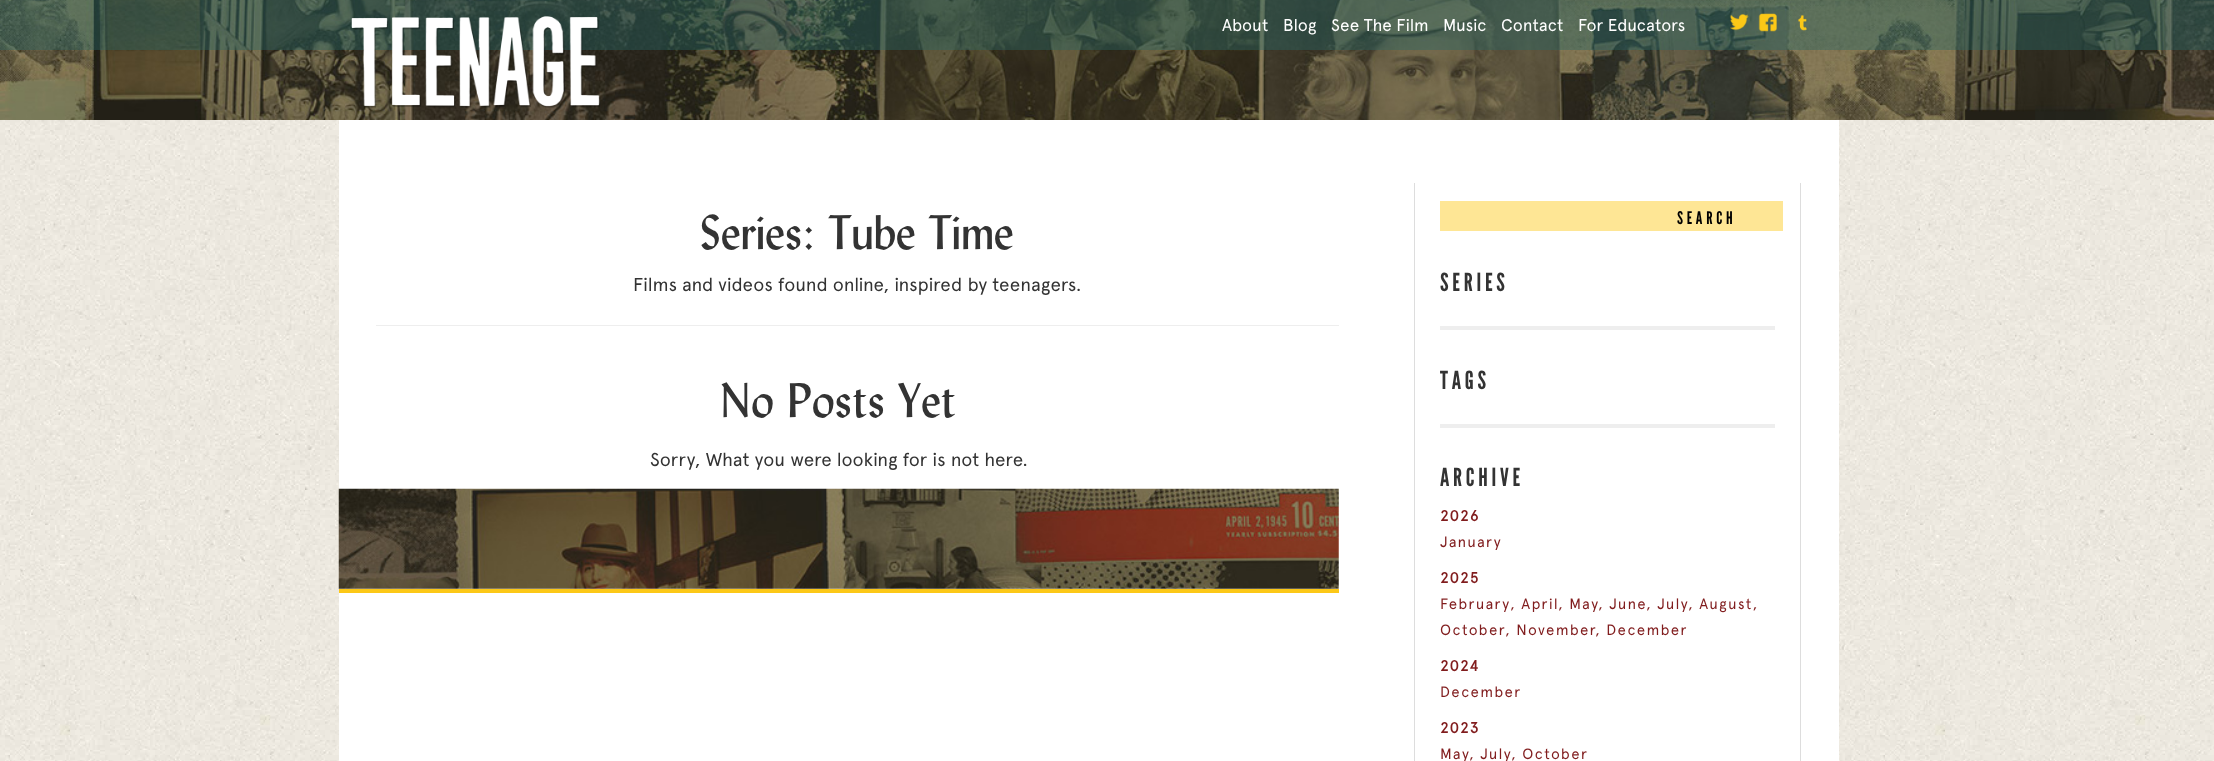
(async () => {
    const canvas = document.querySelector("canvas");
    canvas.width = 2214;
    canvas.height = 761;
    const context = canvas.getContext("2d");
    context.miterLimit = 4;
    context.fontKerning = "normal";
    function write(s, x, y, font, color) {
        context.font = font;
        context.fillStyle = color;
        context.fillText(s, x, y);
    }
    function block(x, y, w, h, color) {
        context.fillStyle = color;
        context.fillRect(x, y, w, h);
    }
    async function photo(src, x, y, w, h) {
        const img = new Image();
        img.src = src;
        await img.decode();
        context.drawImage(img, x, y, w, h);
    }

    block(0, 0, 2214, 761, "rgb(255, 255, 255)");
    await photo("media/1.png", 0, 120, 2214, 641);
    await photo("media/2.png", 0, 0, 2214, 120);
    block(0, 0, 2214, 50, "rgba(37, 106, 105, 0.4)");
    await photo("media/3.png", 351, 16, 250, 92);
    write("About", 1222, 31, "17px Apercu", "rgb(255, 255, 255)");
    write("Blog", 1283, 31, "17px Apercu", "rgb(255, 255, 255)");
    write("See The Film", 1331, 31, "17px Apercu", "rgb(255, 255, 255)");
    write("Music", 1443, 31, "17px Apercu", "rgb(255, 255, 255)");
    write("Contact", 1501, 31, "17px Apercu", "rgb(255, 255, 255)");
    write("For Educators", 1578, 31, "17px Apercu", "rgb(255, 255, 255)");
    await photo("media/4.png", 1730, 14, 19, 17);
    await photo("media/5.png", 1758, 13, 19, 19);
    await photo("media/6.png", 1798, 15, 9, 16);
    block(339, 120, 1500, 641, "rgb(255, 255, 255)");
    block(376, 325, 963, 1, "rgb(238, 238, 238)");
    write("Series: Tube Time", 700, 249, "48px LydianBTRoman", "rgb(51, 51, 51)");
    write("Films and videos found online, inspired by teenagers.", 633, 291, "18.75px Apercu", "rgb(51, 51, 51)");
    block(339, 589, 1000, 4, "rgb(252, 200, 23)");
    write("No Posts Yet", 720, 417, "48px LydianBTRoman", "rgb(51, 51, 51)");
    write("Sorry, What you were looking for is not here.", 650, 466, "18.75px Apercu", "rgb(51, 51, 51)");
    await photo("media/7.png", 338, 488, 1001, 101);
    block(1800, 183, 1, 578, "rgb(221, 221, 221)");
    block(1414, 183, 1, 578, "rgb(221, 221, 221)");
    block(1440, 201, 343, 30, "rgb(254, 230, 149)");
    context.letterSpacing = "3.75px";
    write("SEARCH", 1677, 224, "17.5px League Gothic", "rgb(0, 0, 0)");
    block(1440, 326, 335, 4, "rgb(238, 238, 238)");
    write("SERIES", 1440, 291, "25px League Gothic", "rgb(51, 51, 51)");
    block(1440, 424, 335, 4, "rgb(238, 238, 238)");
    write("TAGS", 1440, 389, "25px League Gothic", "rgb(51, 51, 51)");
    write("ARCHIVE", 1440, 486, "25px League Gothic", "rgb(51, 51, 51)");
    context.letterSpacing = "1.25px";
    write("2026", 1440, 521, "bold 15px Apercu", "rgb(129, 29, 30)");
    write("January", 1440, 547, "15px Apercu", "rgb(129, 29, 30)");
    write("2025", 1440, 583, "bold 15px Apercu", "rgb(129, 29, 30)");
    write("February", 1440, 609, "15px Apercu", "rgb(129, 29, 30)");
    write(", April", 1510, 609, "15px Apercu", "rgb(129, 29, 30)");
    write(", May", 1558, 609, "15px Apercu", "rgb(129, 29, 30)");
    write(", June", 1598, 609, "15px Apercu", "rgb(129, 29, 30)");
    write(", July", 1646, 609, "15px Apercu", "rgb(129, 29, 30)");
    write(", August,", 1688, 609, "15px Apercu", "rgb(129, 29, 30)");
    write("October", 1440, 635, "15px Apercu", "rgb(129, 29, 30)");
    write(", November", 1505, 635, "15px Apercu", "rgb(129, 29, 30)");
    write(", December", 1595, 635, "15px Apercu", "rgb(129, 29, 30)");
    write("2024", 1440, 671, "bold 15px Apercu", "rgb(129, 29, 30)");
    write("December", 1440, 697, "15px Apercu", "rgb(129, 29, 30)");
    write("2023", 1440, 733, "bold 15px Apercu", "rgb(129, 29, 30)");
    write("May", 1440, 759, "15px Apercu", "rgb(129, 29, 30)");
    write(", July", 1469, 759, "15px Apercu", "rgb(129, 29, 30)");
    write(", October", 1511, 759, "15px Apercu", "rgb(129, 29, 30)");
})();
